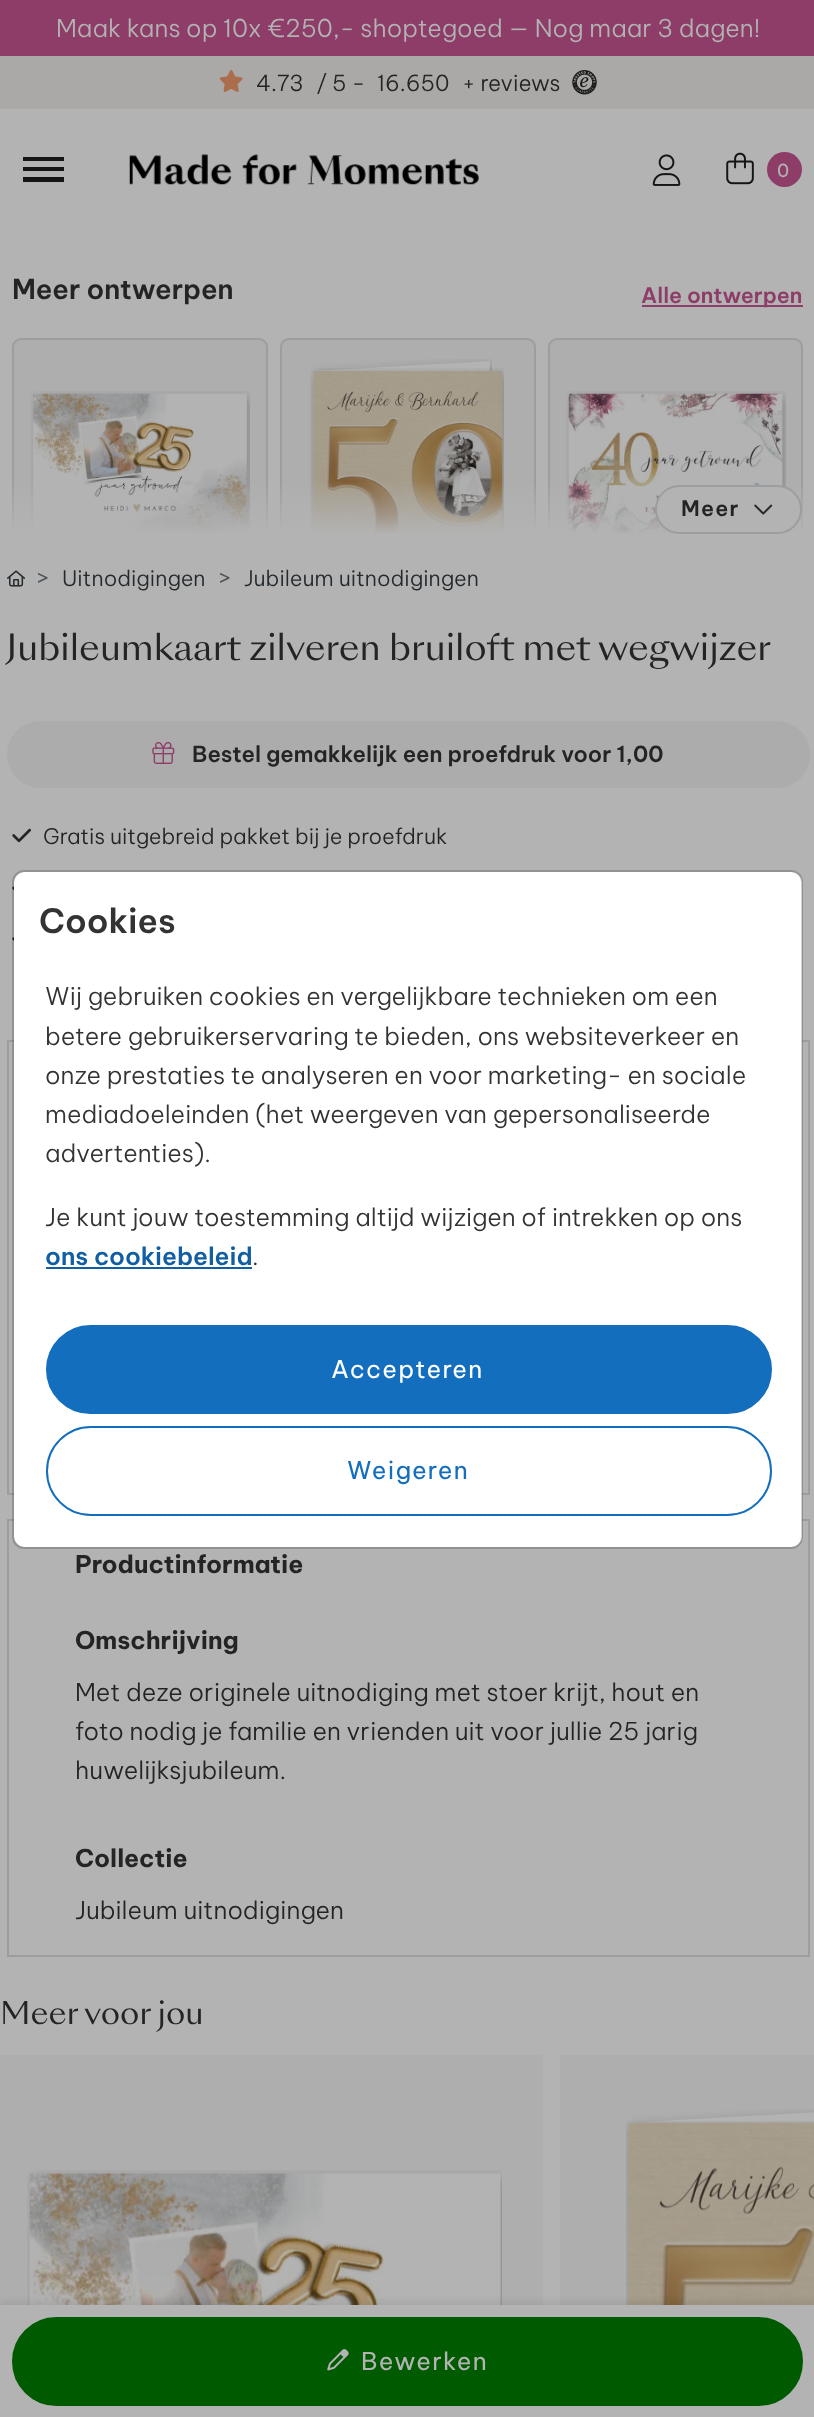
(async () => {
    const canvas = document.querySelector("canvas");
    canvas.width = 814;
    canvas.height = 2417;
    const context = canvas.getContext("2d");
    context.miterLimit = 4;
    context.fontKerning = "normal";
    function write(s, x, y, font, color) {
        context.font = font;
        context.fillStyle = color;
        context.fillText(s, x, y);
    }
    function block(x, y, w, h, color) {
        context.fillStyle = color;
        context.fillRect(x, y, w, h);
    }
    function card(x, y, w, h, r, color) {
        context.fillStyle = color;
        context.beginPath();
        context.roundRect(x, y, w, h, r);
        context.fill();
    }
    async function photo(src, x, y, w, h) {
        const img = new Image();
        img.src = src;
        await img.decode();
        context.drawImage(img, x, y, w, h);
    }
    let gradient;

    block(0, 0, 814, 2417, "rgb(179, 179, 179)");
    block(0, 56, 814, 53, "rgb(171, 169, 167)");
    block(0, 0, 814, 56, "rgb(142, 61, 105)");
    write("Maak kans op 10x €250,- shoptegoed — Nog maar 3 dagen!", 56, 37, "300 24.5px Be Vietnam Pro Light", "rgb(179, 179, 179)");
    await photo("media/1.png", 219, 70, 24, 22);
    write("4.73", 256, 91, "300 22.05px Be Vietnam Pro Light", "rgb(36, 36, 36)");
    write("/ 5 -", 316, 91, "300 22.05px Be Vietnam Pro Light", "rgb(36, 36, 36)");
    write("16.650", 377, 91, "300 22.05px Be Vietnam Pro Light", "rgb(36, 36, 36)");
    write("+ reviews", 462, 91, "300 22.05px Be Vietnam Pro Light", "rgb(36, 36, 36)");
    await photo("media/2.png", 572, 70, 25, 25);
    context.fillStyle = "rgb(21, 21, 21)";
    context.beginPath();
    context.moveTo(23, 157);
    context.lineTo(64, 157);
    context.lineTo(64, 161);
    context.lineTo(23, 161);
    context.closePath();
    context.moveTo(23, 167);
    context.lineTo(64, 167);
    context.lineTo(64, 171);
    context.lineTo(23, 171);
    context.closePath();
    context.moveTo(23, 177);
    context.lineTo(64, 177);
    context.lineTo(64, 182);
    context.lineTo(23, 182);
    context.closePath();
    context.fill();
    await photo("media/3.png", 129, 154, 350, 32);
    await photo("media/4.png", 652, 154, 29, 32);
    await photo("media/5.png", 726, 152, 28, 33);
    context.fillStyle = "rgb(142, 61, 105)";
    context.beginPath();
    context.arc(784.5, 169.5, 17.5, 0, Math.PI * 2);
    context.fill();
    write("0", 777, 177, "18px Be Vietnam Pro", "rgb(179, 179, 179)");
    write("Meer ontwerpen", 12, 299, "600 27.25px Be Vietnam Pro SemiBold", "rgb(36, 36, 36)");
    block(642, 305, 161, 2, "rgb(142, 61, 105)");
    write("Alle ontwerpen", 641, 303, "600 21.4px Be Vietnam Pro SemiBold", "rgb(142, 61, 105)");
    context.fillStyle = "rgb(174, 174, 175)";
    context.beginPath();
    context.roundRect(12, 338, 256, 196, [9, 9, 0, 0]);
    context.fill();
    await photo("media/11.png", 7, 570, 18, 17);
    write("Jubileum uitnodigingen", 244, 586, "300 21.4px Be Vietnam Pro Light", "rgb(36, 41, 45)");
    context.save();
    context.beginPath();
    context.rect(0, 313, 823, 221);
    context.clip();
    context.beginPath();
    context.roundRect(13, 339, 254, 253, 8);
    context.strokeStyle = "rgb(155, 158, 161)";
    context.lineWidth = 2;
    context.stroke();
    context.restore();
    await photo("media/6.png", 30, 391, 220, 143);
    context.fillStyle = "rgb(174, 174, 175)";
    context.beginPath();
    context.roundRect(280, 338, 256, 196, [9, 9, 0, 0]);
    context.fill();
    context.save();
    context.beginPath();
    context.rect(0, 313, 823, 221);
    context.clip();
    context.beginPath();
    context.roundRect(281, 339, 254, 253, 8);
    context.strokeStyle = "rgb(155, 158, 161)";
    context.lineWidth = 2;
    context.stroke();
    context.restore();
    await photo("media/7.png", 311, 359, 181, 175);
    await photo("media/8.png", 310, 368, 194, 166);
    context.beginPath();
    context.roundRect(548, 338, 255, 196, [9, 9, 0, 0]);
    context.fill();
    context.save();
    context.beginPath();
    context.rect(0, 313, 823, 221);
    context.clip();
    context.beginPath();
    context.roundRect(549, 339, 253, 253, 8);
    context.strokeStyle = "rgb(155, 158, 161)";
    context.lineWidth = 2;
    context.stroke();
    context.restore();
    await photo("media/9.png", 566, 391, 220, 143);
    gradient = context.createLinearGradient(409, 534, 409, 481);
    gradient.addColorStop(0, "rgb(179, 179, 179)");
    gradient.addColorStop(1, "rgba(179, 179, 179, 0)");
    context.fillStyle = gradient;
    context.fillRect(12, 482, 791, 52);
    context.fillStyle = "rgb(179, 179, 179)";
    context.beginPath();
    context.roundRect(656, 486, 145, 47, 23.5);
    context.fill();
    context.strokeStyle = "rgb(155, 158, 161)";
    context.lineWidth = 2;
    context.stroke();
    context.letterSpacing = "1.25px";
    write("Meer", 681, 516, "600 21.4px Be Vietnam Pro SemiBold", "rgb(36, 36, 36)");
    await photo("media/10.png", 754, 504, 19, 11);
    context.letterSpacing = "0px";
    write(">", 36, 586, "300 24.5px Be Vietnam Pro Light", "rgb(76, 82, 88)");
    write("Uitnodigingen", 62, 586, "300 21.4px Be Vietnam Pro Light", "rgb(36, 41, 45)");
    write(">", 218, 586, "300 24.5px Be Vietnam Pro Light", "rgb(76, 82, 88)");
    write("Jubileumkaart zilveren bruiloft met wegwijzer", 6, 660, "35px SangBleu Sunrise", "rgb(36, 36, 36)");
    card(7, 721, 803, 67, 33.5, "rgb(172, 172, 172)");
    await photo("media/12.png", 152, 742, 23, 22);
    write("Bestel gemakkelijk een proefdruk voor 1,00", 192, 762, "600 22.05px Be Vietnam Pro SemiBold", "rgb(36, 36, 36)");
    await photo("media/13.png", 12, 828, 19, 15);
    write("Gratis uitgebreid pakket bij je proefdruk", 43, 844, "300 21.4px Be Vietnam Pro Light", "rgb(36, 36, 36)");
    await photo("media/14.png", 12, 886, 2, 5);
    await photo("media/15.png", 12, 937, 2, 4);
    context.strokeRect(8, 1041, 801, 453);
    context.strokeRect(8, 1520, 801, 436);
    write("Productinformatie", 75, 1573, "bold 24.5px Be Vietnam Pro", "rgb(36, 36, 36)");
    write("Omschrijving", 75, 1649, "bold 24.5px Be Vietnam Pro", "rgb(36, 36, 36)");
    write("Met deze originele uitnodiging met stoer krijt, hout en", 75, 1701, "300 24.5px Be Vietnam Pro Light", "rgb(36, 36, 36)");
    write("foto nodig je familie en vrienden uit voor jullie 25 jarig", 75, 1740, "300 24.5px Be Vietnam Pro Light", "rgb(36, 36, 36)");
    write("huwelijksjubileum.", 75, 1779, "300 24.5px Be Vietnam Pro Light", "rgb(36, 36, 36)");
    write("Collectie", 75, 1867, "bold 24.5px Be Vietnam Pro", "rgb(36, 36, 36)");
    write("Jubileum uitnodigingen", 75, 1919, "300 24.5px Be Vietnam Pro Light", "rgb(36, 36, 36)");
    write("Meer voor jou", 0, 2024, "30.5px SangBleu Sunrise", "rgb(36, 36, 36)");
    block(536, 2055, 7, 7, "rgb(174, 174, 175)");
    card(-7, 2055, 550, 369, 7, "rgb(174, 174, 175)");
    await photo("media/16.png", 27, 2170, 475, 135);
    block(560, 2055, 7, 7, "rgb(174, 174, 175)");
    context.beginPath();
    context.moveTo(567, 2055);
    context.lineTo(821, 2055);
    context.lineTo(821, 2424);
    context.lineTo(567, 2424);
    context.bezierCurveTo(563, 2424, 560, 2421, 560, 2417);
    context.lineTo(560, 2062);
    context.bezierCurveTo(560, 2058, 563, 2055, 567, 2055);
    context.closePath();
    context.fill();
    await photo("media/17.png", 626, 2109, 188, 196);
    await photo("media/18.png", 626, 2121, 188, 184);
    context.fillStyle = "rgba(18, 18, 18, 0.07)";
    context.filter = "blur(3px)";
    context.beginPath();
    context.rect(0, 2301, 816, 114);
    context.fill();
    context.filter = "none";
    block(0, 2305, 814, 112, "rgb(179, 179, 179)");
    context.fillStyle = "rgb(0, 90, 0)";
    context.beginPath();
    context.roundRect(13, 2318, 789, 87, 43.5);
    context.fill();
    context.strokeStyle = "rgb(0, 90, 0)";
    context.stroke();
    await photo("media/19.png", 327, 2349, 22, 22);
    context.letterSpacing = "1.25px";
    write("Bewerken", 361, 2370, "24.5px Be Vietnam Pro", "rgb(179, 179, 179)");
    card(14, 872, 788, 675, 11, "rgb(255, 255, 255)");
    context.beginPath();
    context.roundRect(13, 871, 789, 677, 11);
    context.strokeStyle = "rgba(0, 0, 0, 0.18)";
    context.stroke();
    context.letterSpacing = "0px";
    write("Cookies", 39, 933, "600 33.5px Be Vietnam Pro SemiBold", "rgb(51, 51, 51)");
    write("Wij gebruiken cookies en vergelijkbare technieken om een", 45, 1005, "300 24.5px Be Vietnam Pro Light", "rgb(51, 51, 51)");
    write("betere gebruikerservaring te bieden, ons websiteverkeer en", 45, 1045, "300 24.5px Be Vietnam Pro Light", "rgb(51, 51, 51)");
    write("onze prestaties te analyseren en voor marketing- en sociale", 45, 1084, "300 24.5px Be Vietnam Pro Light", "rgb(51, 51, 51)");
    write("mediadoeleinden (het weergeven van gepersonaliseerde", 45, 1123, "300 24.5px Be Vietnam Pro Light", "rgb(51, 51, 51)");
    write("advertenties).", 45, 1162, "300 24.5px Be Vietnam Pro Light", "rgb(51, 51, 51)");
    write("Je kunt jouw toestemming altijd wijzigen of intrekken op ons", 45, 1226, "300 24.5px Be Vietnam Pro Light", "rgb(51, 51, 51)");
    write("ons cookiebeleid", 45, 1265, "600 24.5px Be Vietnam Pro SemiBold", "rgb(17, 94, 162)");
    block(46, 1267, 206, 2, "rgb(17, 94, 162)");
    write(".", 252, 1265, "300 24.5px Be Vietnam Pro Light", "rgb(51, 51, 51)");
    context.fillStyle = "rgb(20, 110, 190)";
    context.beginPath();
    context.roundRect(47, 1326, 724, 87, 43.5);
    context.fill();
    context.strokeStyle = "rgb(20, 110, 190)";
    context.stroke();
    context.letterSpacing = "1.25px";
    write("Accepteren", 331, 1378, "24.5px Be Vietnam Pro", "rgb(255, 255, 255)");
    context.beginPath();
    context.roundRect(47, 1427, 724, 88, 44);
    context.stroke();
    write("Weigeren", 347, 1479, "24.5px Be Vietnam Pro", "rgb(20, 110, 190)");
})();
